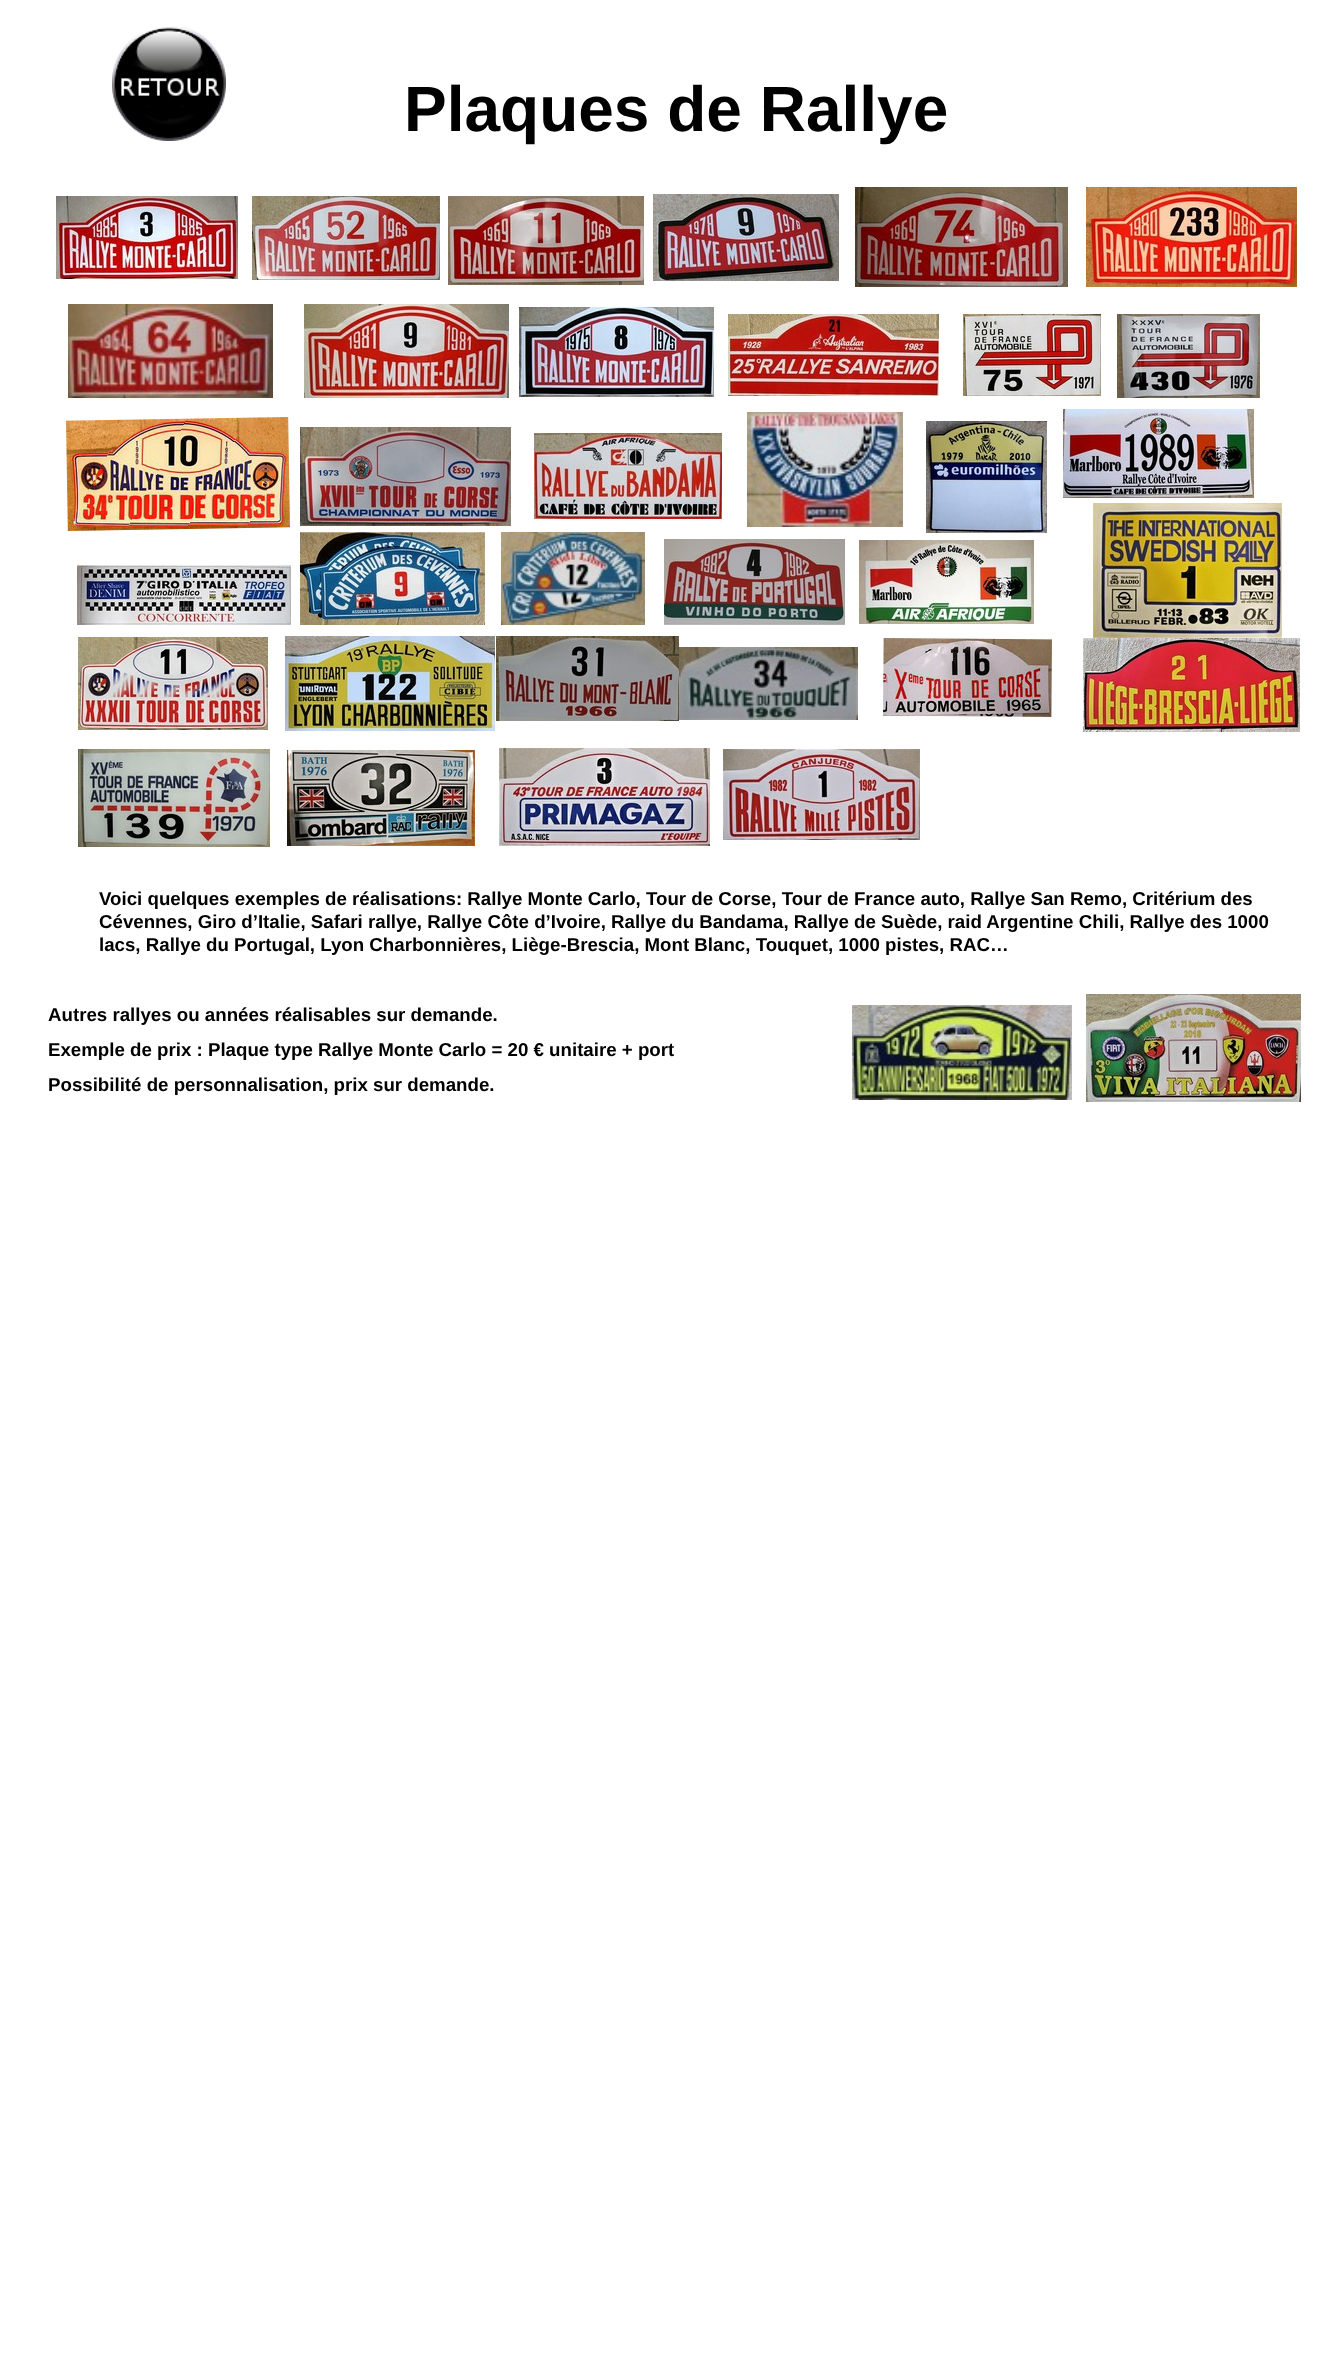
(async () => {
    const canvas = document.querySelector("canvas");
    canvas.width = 1317;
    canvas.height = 2373;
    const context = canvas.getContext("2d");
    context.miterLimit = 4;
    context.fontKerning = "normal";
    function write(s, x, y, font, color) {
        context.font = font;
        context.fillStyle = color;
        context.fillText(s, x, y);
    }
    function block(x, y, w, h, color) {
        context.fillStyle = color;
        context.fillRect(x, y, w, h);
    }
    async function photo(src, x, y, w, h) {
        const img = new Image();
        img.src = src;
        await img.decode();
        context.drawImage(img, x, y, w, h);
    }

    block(0, 0, 1317, 2373, "rgb(255, 255, 255)");
    await photo("media/1.png", 112, 26, 114, 115);
    write("Plaques de Rallye", 404, 131, "bold 64px Liberation Sans", "rgb(0, 0, 0)");
    await photo("media/2.png", 56, 196, 182, 83);
    await photo("media/3.png", 252, 196, 188, 84);
    await photo("media/4.png", 448, 196, 196, 89);
    await photo("media/5.png", 653, 194, 186, 87);
    await photo("media/6.png", 855, 187, 213, 100);
    await photo("media/7.png", 1086, 187, 211, 100);
    await photo("media/8.png", 68, 304, 205, 94);
    await photo("media/9.png", 304, 304, 205, 94);
    await photo("media/10.png", 519, 307, 195, 90);
    await photo("media/11.png", 728, 314, 211, 82);
    await photo("media/12.png", 963, 314, 138, 82);
    await photo("media/13.png", 1117, 314, 143, 84);
    await photo("media/14.png", 66, 417, 224, 114);
    await photo("media/15.png", 300, 427, 211, 99);
    await photo("media/16.png", 534, 433, 188, 86);
    await photo("media/17.png", 747, 412, 156, 115);
    await photo("media/18.png", 926, 421, 121, 112);
    await photo("media/19.png", 1063, 409, 191, 89);
    await photo("media/20.png", 77, 565, 214, 60);
    await photo("media/21.png", 300, 532, 185, 93);
    await photo("media/22.png", 501, 532, 144, 93);
    await photo("media/23.png", 664, 539, 181, 86);
    await photo("media/24.png", 859, 540, 175, 84);
    await photo("media/25.png", 1093, 503, 189, 135);
    await photo("media/26.png", 78, 637, 190, 93);
    await photo("media/27.png", 285, 636, 210, 95);
    await photo("media/28.png", 496, 636, 183, 85);
    await photo("media/29.png", 679, 647, 179, 73);
    await photo("media/30.png", 883, 638, 169, 79);
    await photo("media/31.png", 1083, 638, 217, 94);
    await photo("media/32.png", 78, 749, 192, 98);
    await photo("media/33.png", 287, 750, 188, 96);
    await photo("media/34.png", 499, 748, 211, 98);
    await photo("media/35.png", 723, 749, 197, 91);
    write("Voici quelques exemples de réalisations: Rallye Monte Carlo, Tour de Corse, Tour de France auto, Rallye San Remo, Critérium des", 99, 905, "bold 18.7px Liberation Sans", "rgb(0, 0, 0)");
    write("Cévennes, Giro d’Italie, Safari rallye, Rallye Côte d’Ivoire, Rallye du Bandama, Rallye de Suède, raid Argentine Chili, Rallye des 1000", 99, 928, "bold 18.7px Liberation Sans", "rgb(0, 0, 0)");
    write("lacs, Rallye du Portugal, Lyon Charbonnières, Liège-Brescia, Mont Blanc, Touquet, 1000 pistes, RAC…", 99, 951, "bold 18.7px Liberation Sans", "rgb(0, 0, 0)");
    write("Autres rallyes ou années réalisables sur demande.", 48, 1021, "bold 18.7px Liberation Sans", "rgb(0, 0, 0)");
    write("Exemple de prix : Plaque type Rallye Monte Carlo = 20 € unitaire + port", 48, 1056, "bold 18.7px Liberation Sans", "rgb(0, 0, 0)");
    write("Possibilité de personnalisation, prix sur demande.", 48, 1091, "bold 18.7px Liberation Sans", "rgb(0, 0, 0)");
    await photo("media/36.png", 852, 1005, 220, 95);
    await photo("media/37.png", 1086, 994, 215, 108);
})();
